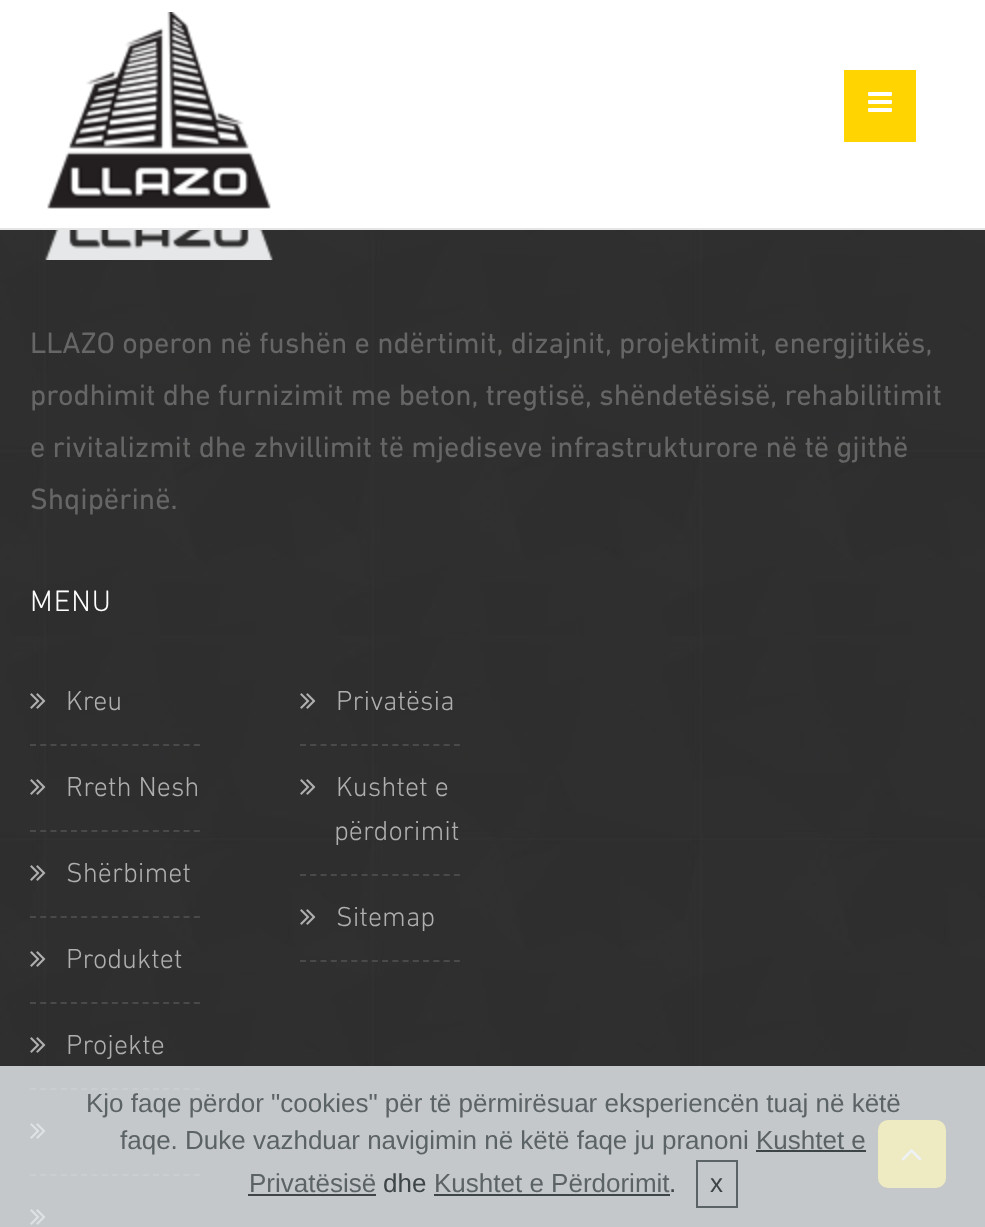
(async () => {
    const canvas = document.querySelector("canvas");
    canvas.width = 985;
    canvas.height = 1227;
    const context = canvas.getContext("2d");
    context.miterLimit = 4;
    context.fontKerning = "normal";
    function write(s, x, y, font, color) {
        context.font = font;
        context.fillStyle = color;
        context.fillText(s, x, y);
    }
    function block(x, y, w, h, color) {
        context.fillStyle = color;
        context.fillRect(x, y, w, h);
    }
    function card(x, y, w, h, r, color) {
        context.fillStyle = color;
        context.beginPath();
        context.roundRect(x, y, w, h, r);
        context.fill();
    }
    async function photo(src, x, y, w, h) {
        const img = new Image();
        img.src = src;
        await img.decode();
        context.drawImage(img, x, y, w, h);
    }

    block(0, 0, 985, 1227, "rgb(255, 255, 255)");
    block(0, 228, 985, 2, "rgb(229, 229, 229)");
    await photo("media/1.png", 47, 12, 224, 197);
    block(844, 70, 72, 72, "rgb(255, 212, 0)");
    await photo("media/2.png", 868, 92, 24, 20);
    await photo("media/3.png", 0, 230, 985, 997);
    await photo("media/4.png", 45, 230, 228, 30);
    write("LLAZO operon në fushën e ndërtimit, dizajnit, projektimit, energjitikës,", 30, 353, "30px DIN Next", "rgb(102, 102, 102)");
    write("prodhimit dhe furnizimit me beton, tregtisë, shëndetësisë, rehabilitimit", 30, 405, "30px DIN Next", "rgb(102, 102, 102)");
    write("e rivitalizmit dhe zhvillimit të mjediseve infrastrukturore në të gjithë", 30, 457, "30px DIN Next", "rgb(102, 102, 102)");
    write("Shqipërinë.", 30, 509, "30px DIN Next", "rgb(102, 102, 102)");
    context.letterSpacing = "1px";
    write("MENU", 30, 611, "300 30px DIN Next", "rgb(255, 255, 255)");
    context.beginPath();
    context.moveTo(30, 745);
    context.lineTo(200, 745);
    context.strokeStyle = "rgb(74, 74, 74)";
    context.lineWidth = 2;
    context.setLineDash([6, 4.24]);
    context.stroke();
    await photo("media/5.png", 30, 693, 16, 16);
    context.letterSpacing = "0px";
    write("Kreu", 66, 710, "300 28px DIN Next", "rgb(175, 175, 175)");
    context.beginPath();
    context.moveTo(30, 831);
    context.lineTo(200, 831);
    context.stroke();
    await photo("media/6.png", 30, 779, 16, 16);
    write("Rreth Nesh", 66, 796, "300 28px DIN Next", "rgb(175, 175, 175)");
    context.beginPath();
    context.moveTo(30, 917);
    context.lineTo(200, 917);
    context.stroke();
    await photo("media/7.png", 30, 865, 16, 16);
    write("Shërbimet", 66, 882, "300 28px DIN Next", "rgb(175, 175, 175)");
    context.beginPath();
    context.moveTo(30, 1003);
    context.lineTo(200, 1003);
    context.stroke();
    await photo("media/8.png", 30, 951, 16, 16);
    write("Produktet", 66, 968, "300 28px DIN Next", "rgb(175, 175, 175)");
    context.beginPath();
    context.moveTo(30, 1089);
    context.lineTo(200, 1089);
    context.stroke();
    await photo("media/9.png", 30, 1037, 16, 16);
    write("Projekte", 66, 1054, "300 28px DIN Next", "rgb(175, 175, 175)");
    context.beginPath();
    context.moveTo(30, 1175);
    context.lineTo(200, 1175);
    context.stroke();
    await photo("media/10.png", 30, 1123, 16, 16);
    await photo("media/11.png", 30, 1209, 16, 16);
    context.beginPath();
    context.moveTo(300, 745);
    context.lineTo(460, 745);
    context.setLineDash([6, 4.26]);
    context.stroke();
    await photo("media/12.png", 300, 693, 16, 16);
    write("Privatësia", 336, 710, "300 28px DIN Next", "rgb(175, 175, 175)");
    context.beginPath();
    context.moveTo(300, 875);
    context.lineTo(460, 875);
    context.stroke();
    await photo("media/13.png", 300, 779, 16, 16);
    write("Kushtet e", 336, 796, "300 28px DIN Next", "rgb(175, 175, 175)");
    write("përdorimit", 334, 840, "300 28px DIN Next", "rgb(175, 175, 175)");
    context.beginPath();
    context.moveTo(300, 961);
    context.lineTo(460, 961);
    context.stroke();
    await photo("media/13.png", 300, 909, 16, 16);
    write("Sitemap", 336, 926, "300 28px DIN Next", "rgb(175, 175, 175)");
    card(878, 1120, 68, 68, 10, "rgb(255, 212, 0)");
    await photo("media/14.png", 901, 1149, 21, 12);
    block(0, 1066, 985, 161, "rgba(234, 239, 241, 0.8)");
    write("Kjo faqe përdor \"cookies\" për të përmirësuar eksperiencën tuaj në këtë", 86, 1112, "26px Liberation Sans", "rgb(92, 99, 102)");
    write("faqe. Duke vazhduar navigimin në këtë faqe ju pranoni Kushtet e", 120, 1149, "26px Liberation Sans", "rgb(92, 99, 102)");
    write("Privatësisë", 249, 1192, "26px Liberation Sans", "rgb(92, 99, 102)");
    block(756, 1150, 110, 2, "rgb(62, 69, 71)");
    block(248, 1194, 128, 2, "rgb(62, 68, 71)");
    write("dhe", 383, 1192, "26px Liberation Sans", "rgb(62, 69, 71)");
    write("Kushtet e Përdorimit", 434, 1192, "26px Liberation Sans", "rgb(92, 99, 102)");
    block(434, 1194, 236, 2, "rgb(62, 69, 71)");
    write(".", 669, 1192, "26px Liberation Sans", "rgb(62, 69, 71)");
    context.strokeStyle = "rgb(92, 99, 102)";
    context.setLineDash([]);
    context.strokeRect(697, 1161, 40, 46);
    write("x", 710, 1192, "26px Liberation Sans", "rgb(62, 69, 71)");
})();
